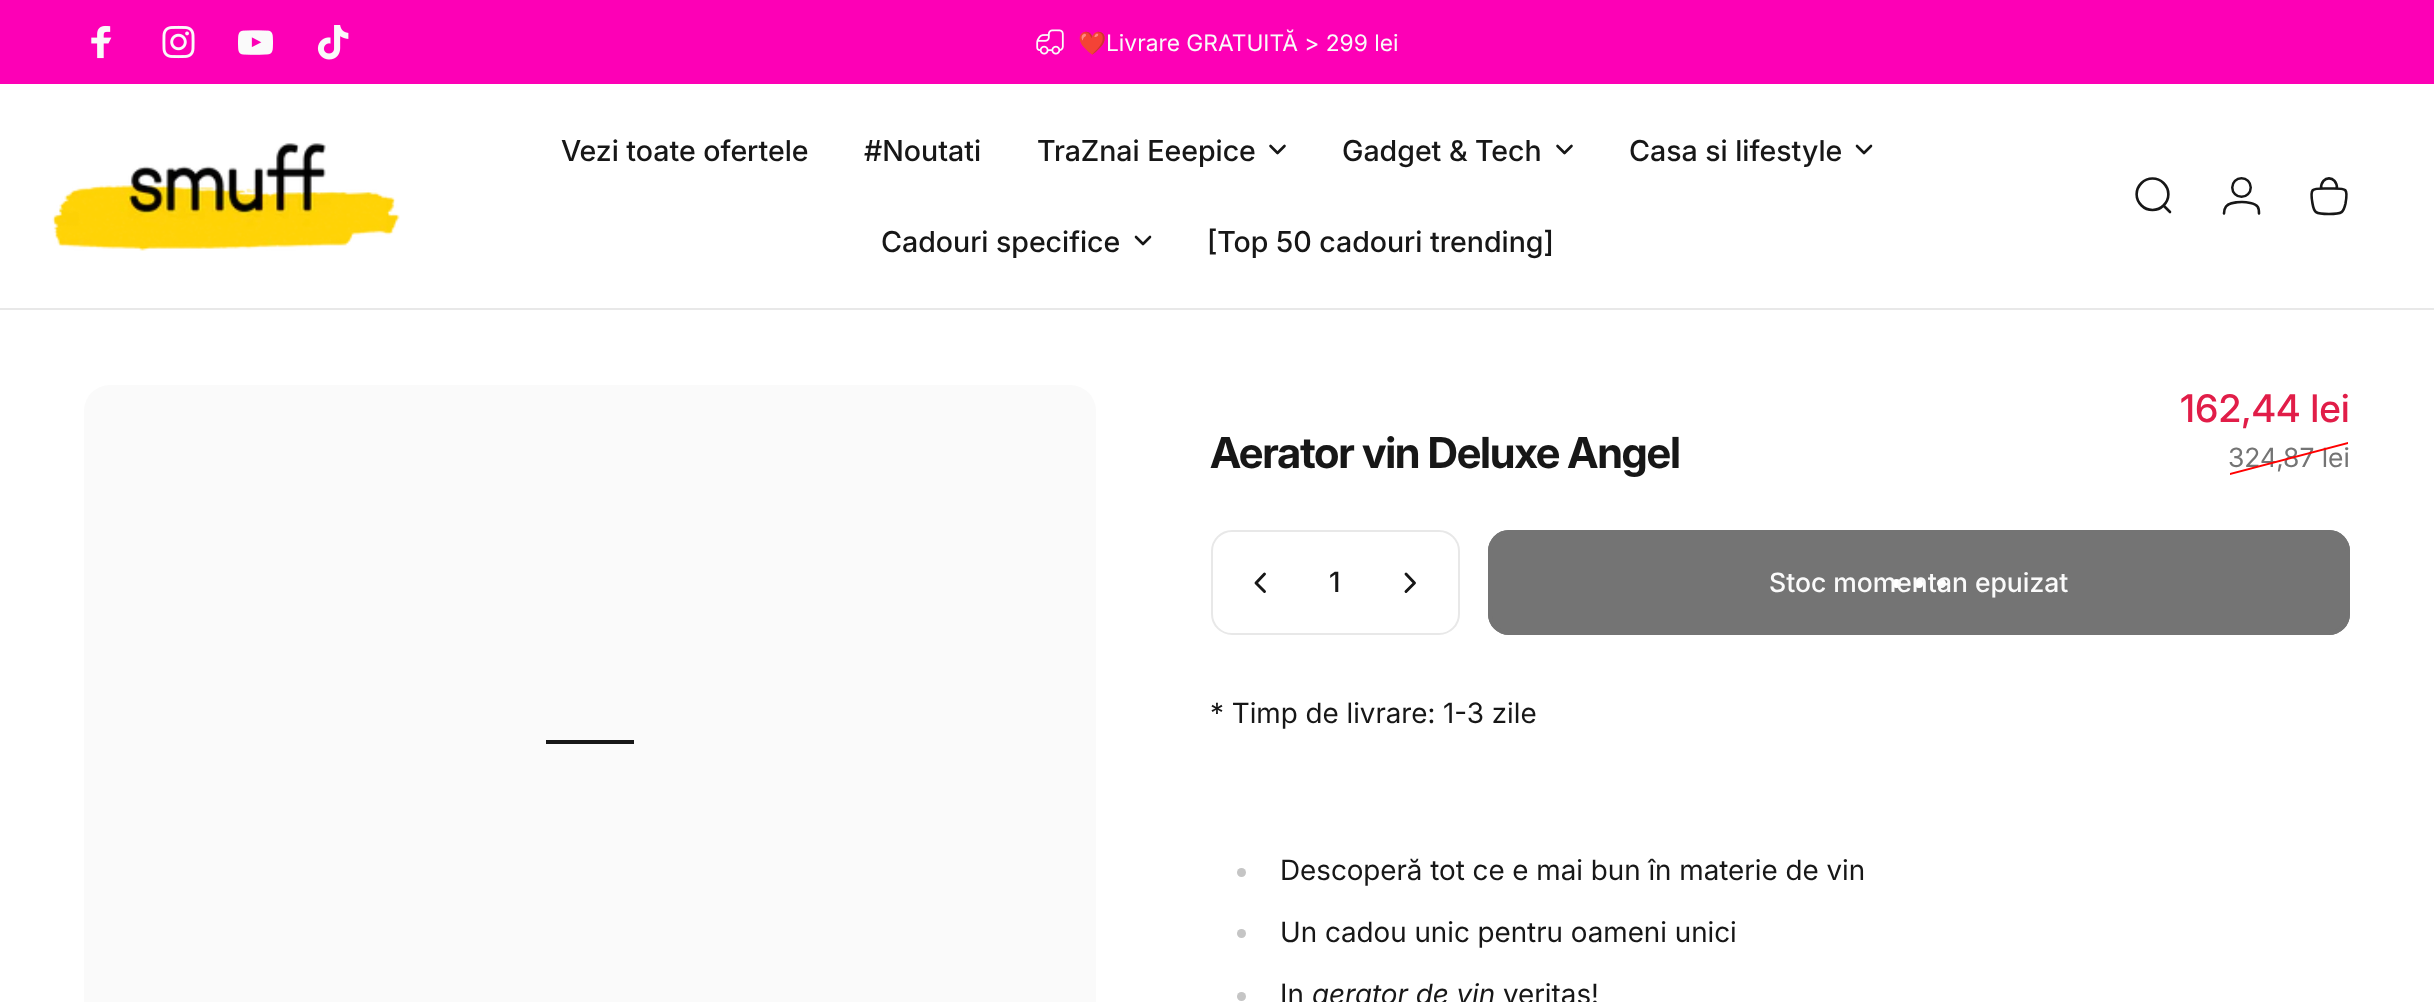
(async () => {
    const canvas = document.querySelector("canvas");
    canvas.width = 2434;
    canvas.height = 1002;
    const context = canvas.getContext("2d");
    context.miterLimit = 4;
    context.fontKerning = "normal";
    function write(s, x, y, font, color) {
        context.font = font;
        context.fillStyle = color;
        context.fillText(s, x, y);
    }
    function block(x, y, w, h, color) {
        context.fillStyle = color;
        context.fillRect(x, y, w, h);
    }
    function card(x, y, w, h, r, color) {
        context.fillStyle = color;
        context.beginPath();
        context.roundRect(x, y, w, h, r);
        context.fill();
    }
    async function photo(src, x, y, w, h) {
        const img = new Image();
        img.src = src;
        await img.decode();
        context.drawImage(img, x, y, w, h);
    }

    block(0, 0, 2434, 1002, "rgb(255, 255, 255)");
    block(0, 0, 2434, 84, "rgb(253, 0, 182)");
    await photo("media/1.png", 91, 25, 21, 34);
    await photo("media/2.png", 162, 25, 33, 34);
    await photo("media/3.png", 238, 30, 35, 25);
    await photo("media/4.png", 317, 25, 32, 35);
    await photo("media/5.png", 1036, 29, 28, 26);
    write("❤️", 1078, 51, "22.75px Noto Color Emoji", "rgb(250, 250, 250)");
    write("Livrare GRATUITĂ > 299 lei", 1106, 51, "22.75px Inter", "rgb(250, 250, 250)");
    await photo("media/6.png", 52, 143, 348, 108);
    write("Vezi toate ofertele", 561, 161, "500 28.75px 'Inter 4'", "rgb(23, 23, 23)");
    write("#Noutati", 864, 161, "500 28.75px 'Inter 4'", "rgb(23, 23, 23)");
    write("TraZnai Eeepice", 1037, 161, "500 28.75px 'Inter 4'", "rgb(23, 23, 23)");
    context.beginPath();
    context.moveTo(1270.5, 146);
    context.lineTo(1277.5, 153);
    context.lineTo(1284.5, 146);
    context.strokeStyle = "rgb(23, 23, 23)";
    context.lineWidth = 2.6;
    context.lineCap = "round";
    context.lineJoin = "round";
    context.stroke();
    write("Gadget & Tech", 1342, 161, "500 28.75px 'Inter 4'", "rgb(23, 23, 23)");
    context.beginPath();
    context.moveTo(1557.5, 146);
    context.lineTo(1564.5, 153);
    context.lineTo(1571.5, 146);
    context.stroke();
    write("Casa si lifestyle", 1629, 161, "500 28.75px 'Inter 4'", "rgb(23, 23, 23)");
    context.beginPath();
    context.moveTo(1857, 146);
    context.lineTo(1864, 153);
    context.lineTo(1871, 146);
    context.stroke();
    write("Cadouri specifice", 881, 252, "500 28.75px 'Inter 4'", "rgb(23, 23, 23)");
    context.beginPath();
    context.moveTo(1136, 237);
    context.lineTo(1143, 244);
    context.lineTo(1150, 237);
    context.stroke();
    write("[Top 50 cadouri trending]", 1207, 252, "500 28.75px 'Inter 4'", "rgb(23, 23, 23)");
    context.beginPath();
    context.moveTo(2170, 212);
    context.lineTo(2163.5, 205.5);
    context.moveTo(2163.5, 205.5);
    context.bezierCurveTo(2170, 199, 2170, 189.5, 2163.5, 183);
    context.bezierCurveTo(2157.5, 177, 2147.5, 177, 2141.5, 183);
    context.bezierCurveTo(2135, 189.5, 2135, 199, 2141.5, 205.5);
    context.bezierCurveTo(2147.5, 211.5, 2157.5, 211.5, 2163.5, 205.5);
    context.closePath();
    context.lineJoin = "miter";
    context.stroke();
    context.beginPath();
    context.arc(2241.5, 187.5, 9.25, 0, Math.PI * 2);
    context.lineWidth = 2.5;
    context.stroke();
    context.beginPath();
    context.moveTo(2242, 202);
    context.bezierCurveTo(2246, 202, 2255, 203, 2257.5, 206.5);
    context.bezierCurveTo(2259, 208.5, 2259, 211, 2259, 213.5);
    context.moveTo(2242, 202);
    context.bezierCurveTo(2237.5, 202, 2228.5, 203, 2226, 206.5);
    context.bezierCurveTo(2224.5, 208.5, 2224, 211, 2224, 213.5);
    context.lineWidth = 2.6;
    context.stroke();
    context.beginPath();
    context.moveTo(2321, 188.5);
    context.bezierCurveTo(2321, 175, 2337, 175, 2337, 188.5);
    context.moveTo(2329, 188.5);
    context.bezierCurveTo(2312, 188.5, 2309.5, 187, 2312.5, 203.5);
    context.bezierCurveTo(2314, 212.5, 2315, 214, 2329, 214);
    context.bezierCurveTo(2342.5, 214, 2343.5, 212.5, 2345.5, 203.5);
    context.bezierCurveTo(2348.5, 187, 2346, 188.5, 2329, 188.5);
    context.closePath();
    context.lineCap = "butt";
    context.stroke();
    block(0, 308, 2434, 2, "rgb(232, 232, 232)");
    card(84, 385, 1012, 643, 26, "rgb(250, 250, 250)");
    block(546, 740, 88, 4, "rgb(23, 23, 23)");
    context.letterSpacing = "-1.25px";
    write("Aerator vin Deluxe Angel", 1210, 468, "bold 42.75px Inter", "rgb(23, 23, 23)");
    context.letterSpacing = "0px";
    write("162,44 lei", 2180, 422, "500 38px Inter", "rgb(225, 29, 72)");
    write("324,87 lei", 2228, 467, "26.5px 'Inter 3'", "rgb(116, 116, 116)");
    context.fillStyle = "rgb(255, 0, 0)";
    context.beginPath();
    context.moveTo(2230, 473);
    context.lineTo(2348, 442);
    context.lineTo(2348, 444);
    context.lineTo(2230, 475);
    context.closePath();
    context.fill();
    context.beginPath();
    context.roundRect(1212, 531, 247, 103, 20);
    context.strokeStyle = "rgb(232, 232, 232)";
    context.lineWidth = 2;
    context.stroke();
    context.beginPath();
    context.moveTo(1264.5, 574);
    context.lineTo(1256, 583);
    context.lineTo(1264.5, 591.5);
    context.strokeStyle = "rgb(23, 23, 23)";
    context.lineWidth = 2.9;
    context.lineCap = "round";
    context.lineJoin = "round";
    context.stroke();
    write("1", 1329, 592, "500 28px 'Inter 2'", "rgb(23, 23, 23)");
    context.beginPath();
    context.moveTo(1406, 574);
    context.lineTo(1414.5, 583);
    context.lineTo(1406, 591.5);
    context.stroke();
    card(1488, 530, 862, 105, 21, "rgb(116, 116, 116)");
    context.fillStyle = "rgb(255, 255, 255)";
    context.beginPath();
    context.arc(1896.5, 583.5, 4.5, 0, Math.PI * 2);
    context.fill();
    card(1915, 579, 8, 9, 4, "rgb(255, 255, 255)");
    context.beginPath();
    context.arc(1941.5, 583.5, 4.5, 0, Math.PI * 2);
    context.fill();
    context.beginPath();
    context.roundRect(1490, 532, 858, 101, 19);
    context.strokeStyle = "rgb(116, 116, 116)";
    context.lineWidth = 4;
    context.lineJoin = "miter";
    context.stroke();
    write("Stoc momentan epuizat", 1769, 592, "500 26.6px 'Inter 3'", "rgb(250, 250, 250)");
    write("* Timp de livrare: 1-3 zile", 1210, 723, "28px 'Inter 2'", "rgb(23, 23, 23)");
    context.fillStyle = "rgb(197, 197, 197)";
    context.beginPath();
    context.arc(1241.5, 872.5, 4.5, 0, Math.PI * 2);
    context.fill();
    write("Descoperă tot ce e mai bun în materie de vin", 1280, 880, "28px 'Inter 2'", "rgb(23, 23, 23)");
    context.fillStyle = "rgb(197, 197, 197)";
    context.beginPath();
    context.arc(1241.5, 933.5, 4.5, 0, Math.PI * 2);
    context.fill();
    write("Un cadou unic pentru oameni unici", 1280, 942, "28px 'Inter 2'", "rgb(23, 23, 23)");
    context.fillStyle = "rgb(197, 197, 197)";
    context.beginPath();
    context.arc(1241.5, 996.5, 4.5, 0, Math.PI * 2);
    context.fill();
    write("In", 1280, 1004, "28px 'Inter 2'", "rgb(23, 23, 23)");
    write("aerator de vin", 1312, 1004, "italic 28px Inter", "rgb(23, 23, 23)");
    write("veritas!", 1503, 1004, "28px 'Inter 2'", "rgb(23, 23, 23)");
})();
